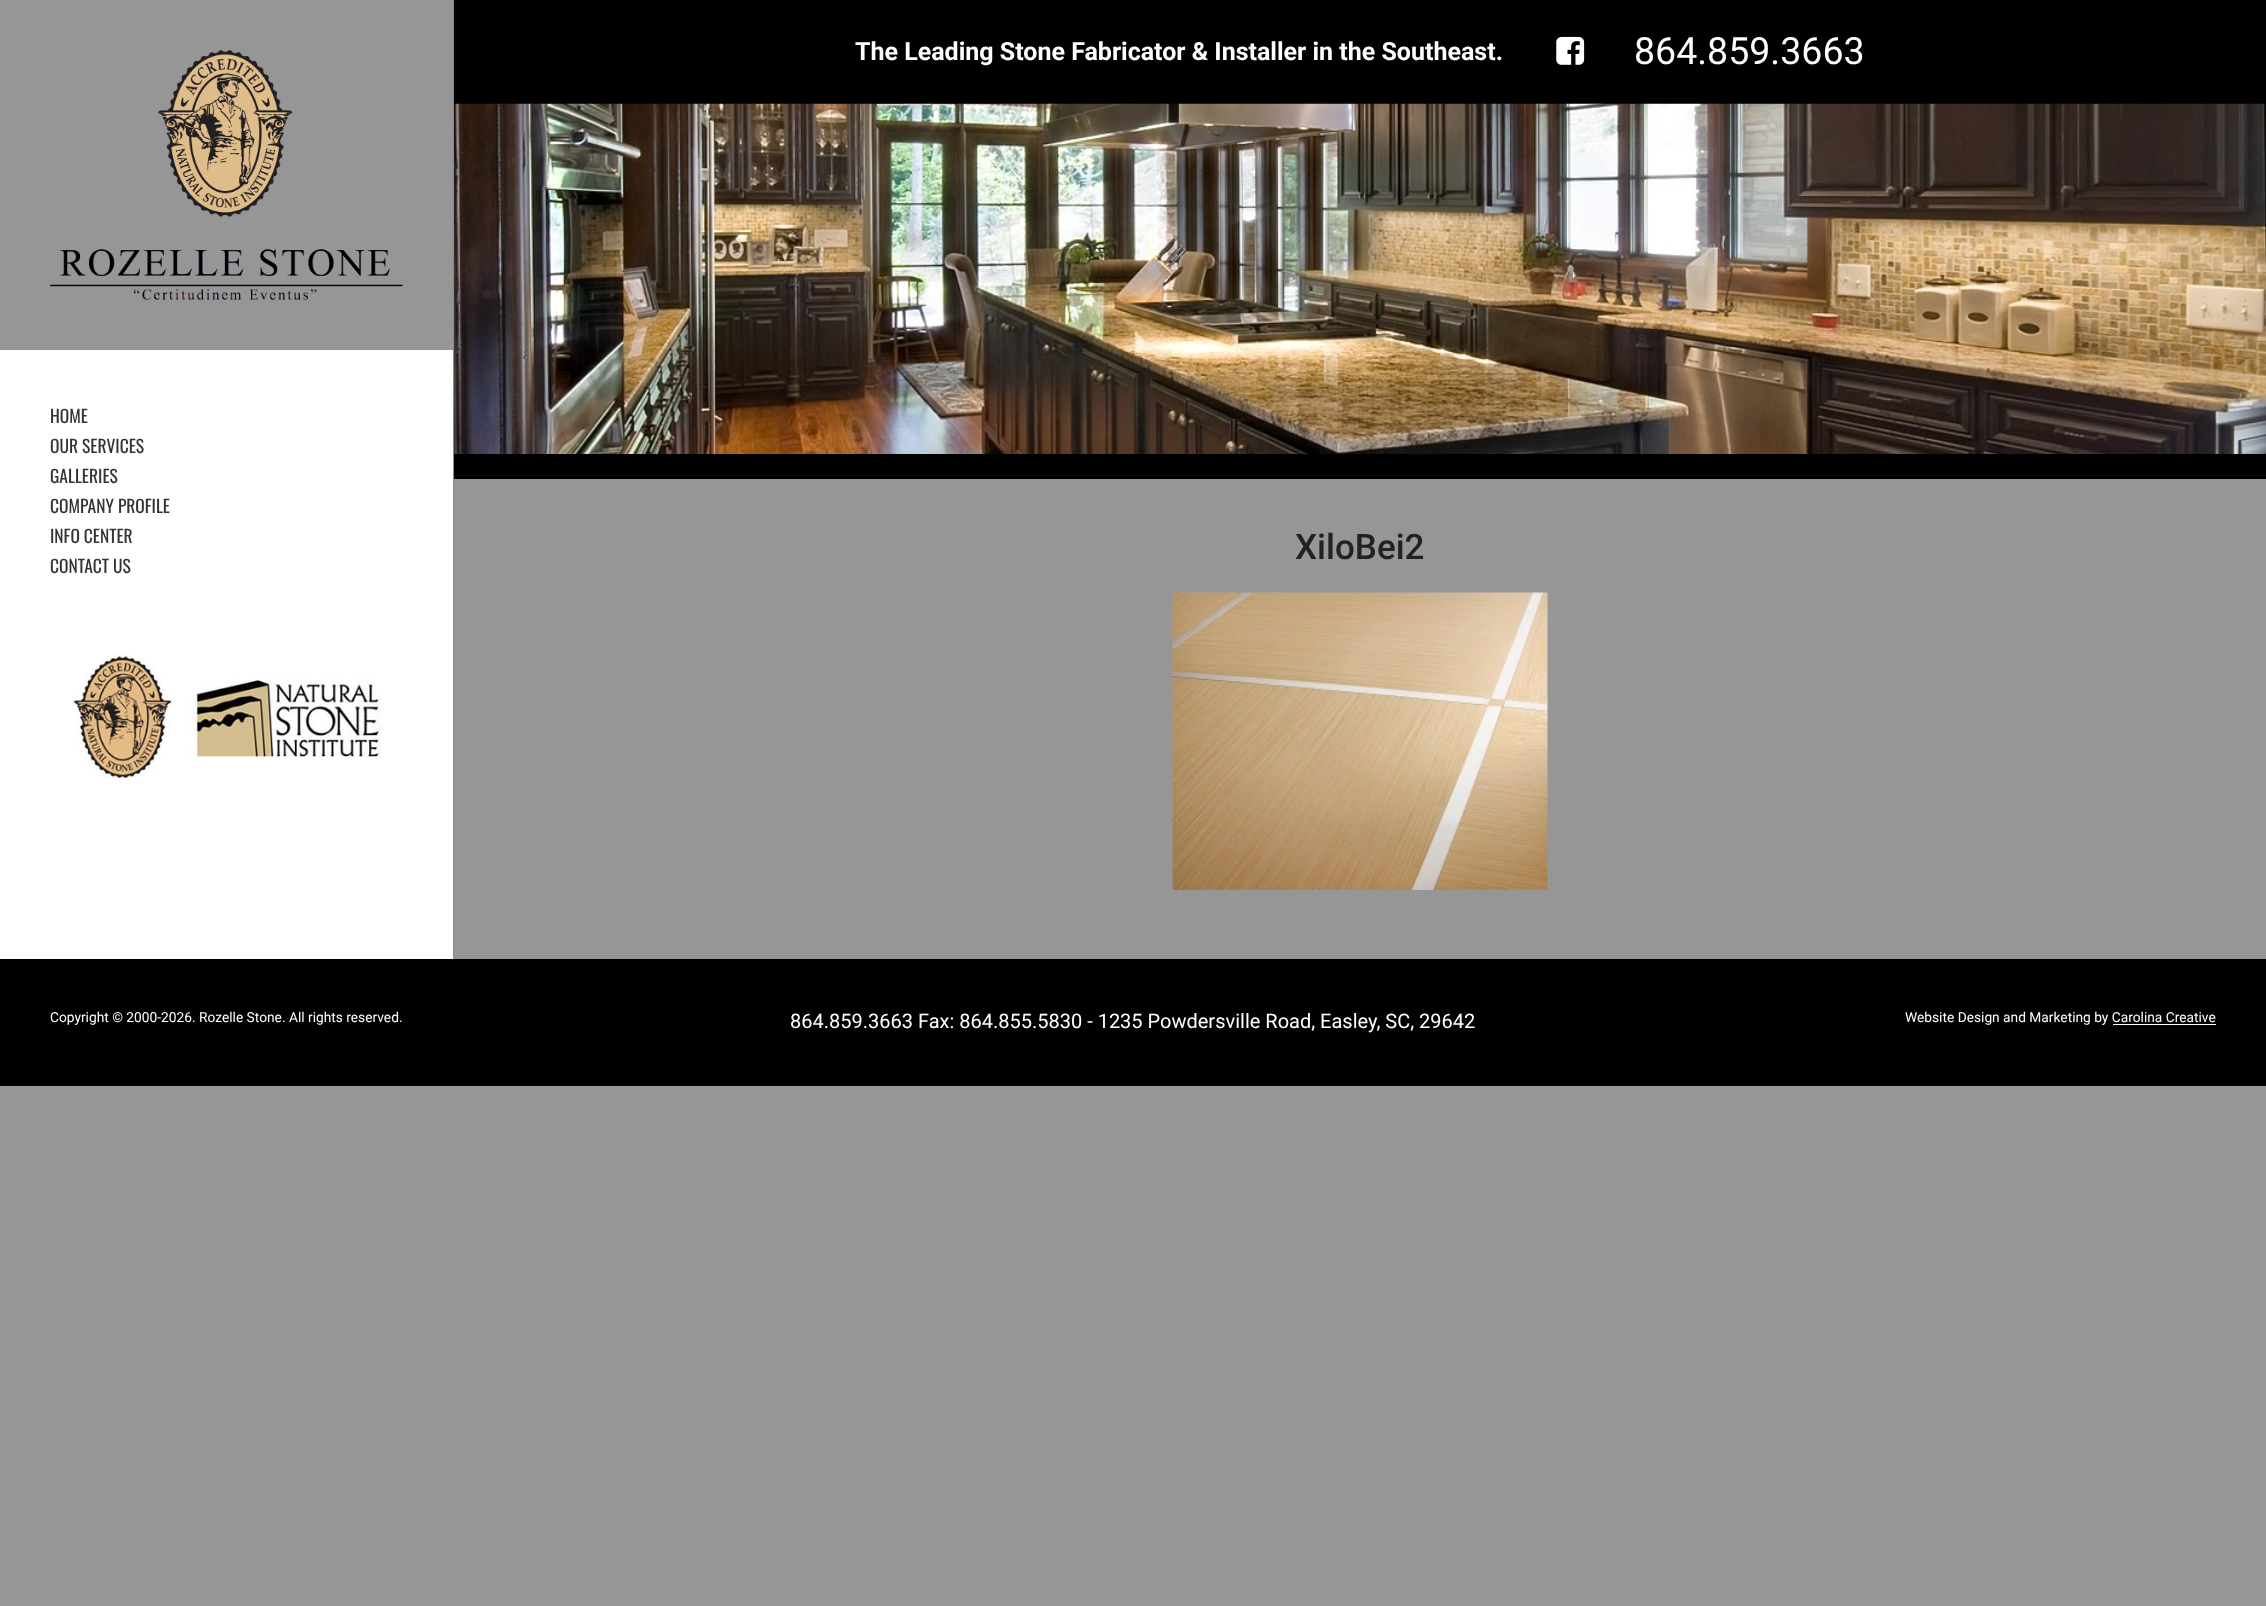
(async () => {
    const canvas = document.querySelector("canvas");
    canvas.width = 2266;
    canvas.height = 1606;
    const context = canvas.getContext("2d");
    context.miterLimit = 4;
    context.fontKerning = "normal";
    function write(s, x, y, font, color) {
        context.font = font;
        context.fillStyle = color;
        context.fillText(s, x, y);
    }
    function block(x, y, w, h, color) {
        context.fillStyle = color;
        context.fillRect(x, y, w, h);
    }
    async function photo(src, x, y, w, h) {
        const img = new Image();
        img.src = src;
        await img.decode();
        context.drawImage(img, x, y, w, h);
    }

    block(0, 0, 2266, 1606, "rgb(150, 150, 150)");
    block(0, 350, 453, 609, "rgb(255, 255, 255)");
    block(453, 0, 1, 959, "rgb(136, 136, 136)");
    await photo("media/1.png", 50, 50, 353, 250);
    write("HOME", 50, 423, "17.5px Oswald", "rgb(51, 51, 51)");
    write("OUR SERVICES", 50, 453, "17.5px Oswald", "rgb(51, 51, 51)");
    write("GALLERIES", 50, 483, "17.5px Oswald", "rgb(51, 51, 51)");
    write("COMPANY PROFILE", 50, 513, "17.5px Oswald", "rgb(51, 51, 51)");
    write("INFO CENTER", 50, 543, "17.5px Oswald", "rgb(51, 51, 51)");
    write("CONTACT US", 50, 573, "17.5px Oswald", "rgb(51, 51, 51)");
    await photo("media/2.png", 72, 651, 310, 127);
    block(454, 0, 1812, 104, "rgb(0, 0, 0)");
    write("The Leading Stone Fabricator & Installer in the Southeast.", 855, 60, "bold 25px Roboto", "rgb(255, 255, 255)");
    await photo("media/3.png", 1556, 36, 29, 29);
    write("864.859.3663", 1634, 64, "37.5px Roboto", "rgb(255, 255, 255)");
    await photo("media/4.png", 454, 103, 1812, 351);
    block(454, 454, 1812, 25, "rgb(0, 0, 0)");
    write("XiloBei2", 1295, 559, "500 35px Roboto", "rgb(34, 34, 34)");
    await photo("media/5.png", 1172, 592, 376, 298);
    block(0, 959, 2266, 127, "rgb(0, 0, 0)");
    write("Copyright © 2000-2026. Rozelle Stone. All rights reserved.", 50, 1022, "13.75px Roboto", "rgb(255, 255, 255)");
    write("864.859.3663 Fax: 864.855.5830 - 1235 Powdersville Road, Easley, SC, 29642", 790, 1028, "20px Roboto", "rgb(255, 255, 255)");
    write("Website Design and Marketing by Carolina Creative", 1905, 1022, "13.75px Roboto", "rgb(255, 255, 255)");
    block(2113, 1024, 103, 1, "rgb(255, 255, 255)");
})();
